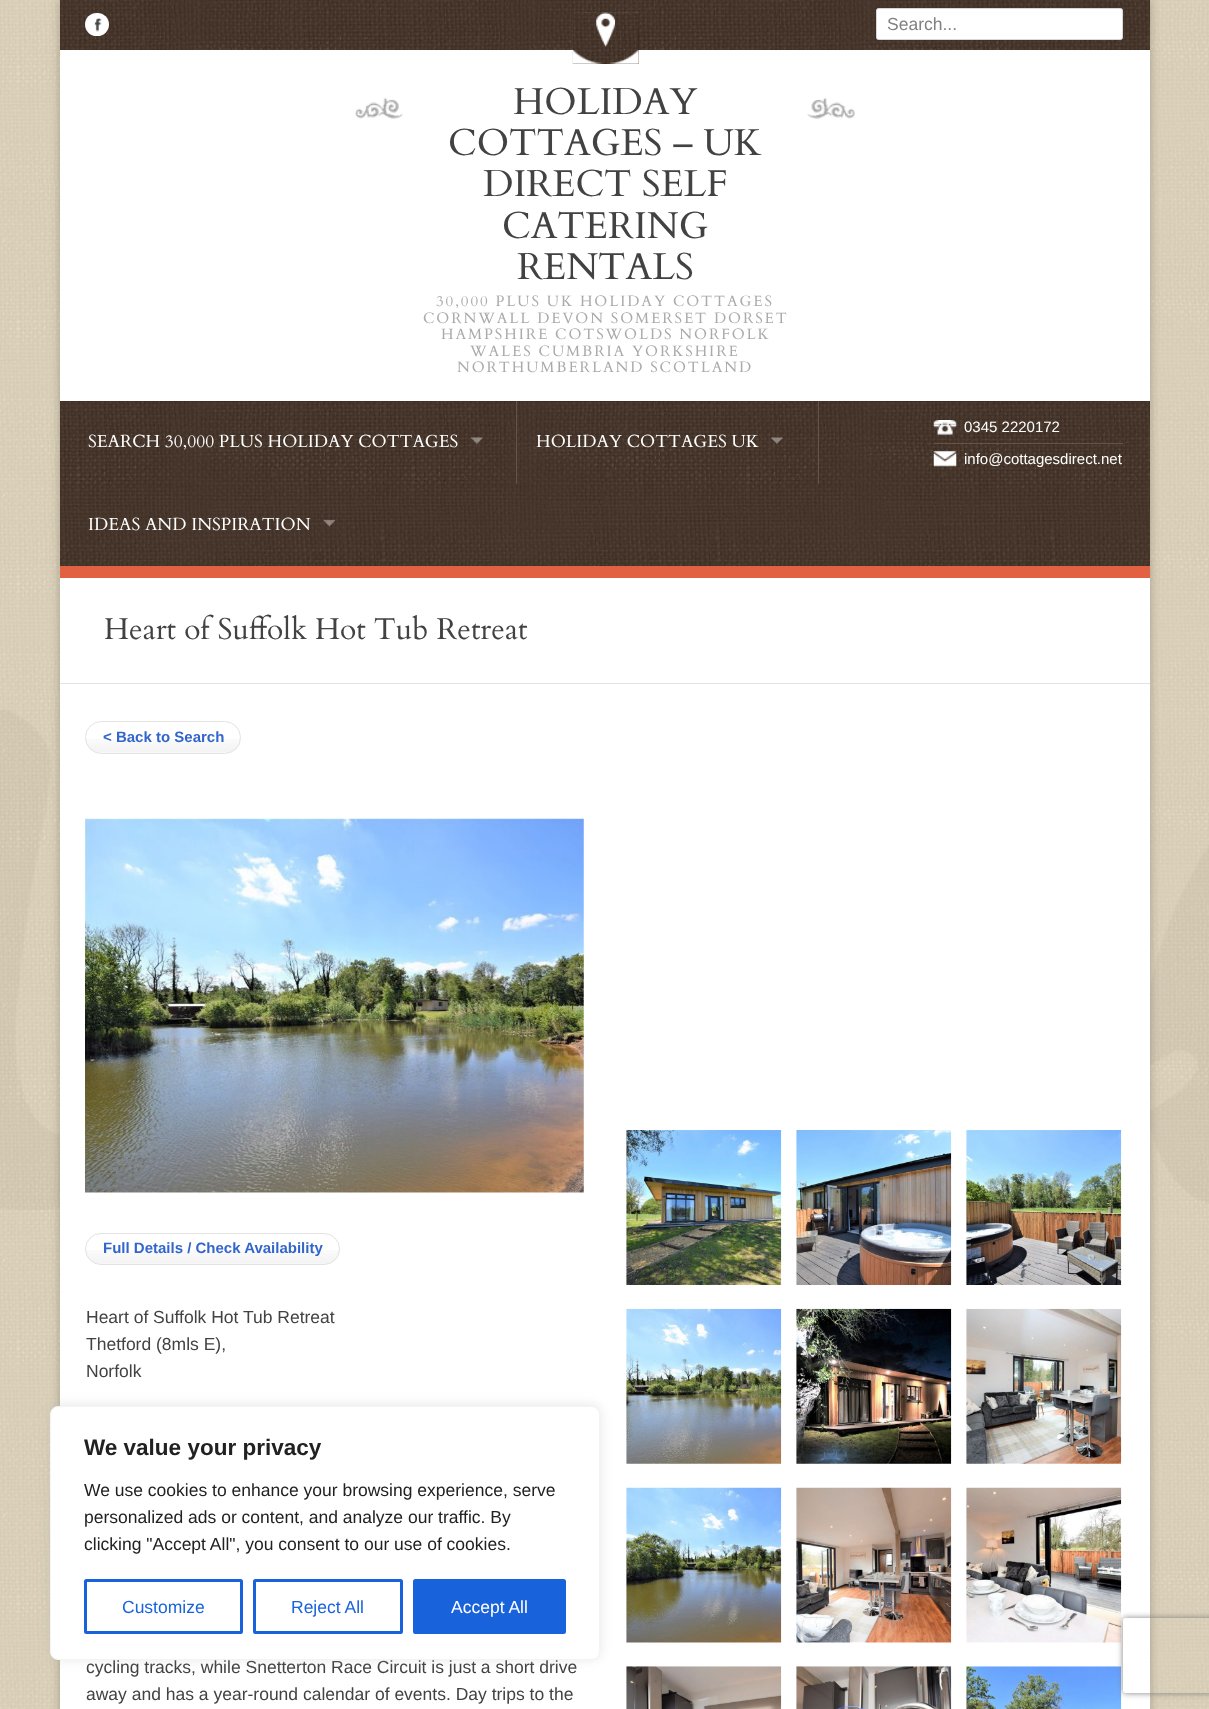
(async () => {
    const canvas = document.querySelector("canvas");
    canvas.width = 1209;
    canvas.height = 1709;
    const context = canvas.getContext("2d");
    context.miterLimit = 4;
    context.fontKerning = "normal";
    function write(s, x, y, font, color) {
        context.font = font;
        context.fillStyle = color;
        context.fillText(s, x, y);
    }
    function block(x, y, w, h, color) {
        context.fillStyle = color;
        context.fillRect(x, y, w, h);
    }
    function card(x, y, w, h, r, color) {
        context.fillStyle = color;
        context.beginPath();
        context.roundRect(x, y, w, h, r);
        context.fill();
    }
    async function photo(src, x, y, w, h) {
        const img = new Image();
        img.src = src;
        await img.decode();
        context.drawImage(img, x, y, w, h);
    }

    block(0, 0, 1209, 1709, "rgb(245, 233, 204)");
    await photo("media/1.png", 0, 0, 1209, 1709);
    await photo("media/2.png", 0, 710, 1209, 500);
    context.fillStyle = "rgba(0, 0, 0, 0.2)";
    context.filter = "blur(4px)";
    context.beginPath();
    context.rect(59, 0, 1092, 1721);
    context.fill();
    context.filter = "none";
    block(60, 50, 1090, 1659, "rgb(255, 255, 255)");
    block(60, 0, 1090, 50, "rgb(49, 24, 7)");
    await photo("media/3.png", 60, 0, 1090, 50);
    card(85, 13, 24, 23, 11.5, "rgb(255, 255, 255)");
    await photo("media/4.png", 94, 18, 8, 14);
    block(573, 13, 66, 51, "rgb(49, 24, 7)");
    await photo("media/5.png", 572, 12, 67, 52);
    await photo("media/6.png", 596, 12, 19, 35);
    await photo("media/7.png", 572, 50, 67, 14);
    context.fillStyle = "rgb(255, 255, 255)";
    context.beginPath();
    context.roundRect(876.5, 8.5, 246, 31, 2);
    context.fill();
    context.strokeStyle = "rgb(212, 216, 217)";
    context.stroke();
    write("Search...", 887, 30, "17.5px Liberation Sans", "rgb(129, 129, 129)");
    await photo("media/8.png", 355, 97, 48, 22);
    write("HOLIDAY", 513, 114, "37.5px Cardo", "rgb(66, 66, 66)");
    write("COTTAGES – UK", 448, 155, "37.5px Cardo", "rgb(66, 66, 66)");
    write("DIRECT SELF", 483, 196, "37.5px Cardo", "rgb(66, 66, 66)");
    write("CATERING", 502, 238, "37.5px Cardo", "rgb(66, 66, 66)");
    write("RENTALS", 517, 279, "37.5px Cardo", "rgb(66, 66, 66)");
    context.letterSpacing = "1.9px";
    write("30,000 PLUS UK HOLIDAY COTTAGES", 436, 306, "15px Cardo", "rgb(170, 170, 170)");
    write("CORNWALL DEVON SOMERSET DORSET", 423, 323, "15px Cardo", "rgb(170, 170, 170)");
    write("HAMPSHIRE COTSWOLDS NORFOLK", 441, 339, "15px Cardo", "rgb(170, 170, 170)");
    write("WALES CUMBRIA YORKSHIRE", 470, 356, "15px Cardo", "rgb(170, 170, 170)");
    write("NORTHUMBERLAND SCOTLAND", 457, 372, "15px Cardo", "rgb(170, 170, 170)");
    await photo("media/9.png", 807, 97, 48, 22);
    block(60, 401, 1090, 165, "rgb(49, 24, 7)");
    await photo("media/10.png", 60, 401, 1090, 165);
    block(60, 566, 1090, 12, "rgb(226, 97, 67)");
    block(516, 401, 1, 83, "rgb(104, 83, 69)");
    context.letterSpacing = "0px";
    write("SEARCH 30,000 PLUS HOLIDAY COTTAGES", 88, 447, "17.5px Cardo", "rgb(255, 255, 255)");
    await photo("media/11.png", 471, 437, 12, 7);
    block(818, 401, 1, 83, "rgb(104, 83, 69)");
    write("HOLIDAY COTTAGES UK", 536, 447, "17.5px Cardo", "rgb(255, 255, 255)");
    await photo("media/12.png", 771, 437, 12, 7);
    write("IDEAS AND INSPIRATION", 88, 530, "17.5px Cardo", "rgb(255, 255, 255)");
    await photo("media/13.png", 323, 519, 13, 8);
    await photo("media/14.png", 933, 420, 24, 15);
    block(934, 443, 189, 1, "rgb(104, 83, 69)");
    write("0345 2220172", 964, 432, "15px Liberation Sans", "rgb(255, 255, 255)");
    await photo("media/15.png", 933, 451, 24, 16);
    write("info@cottagesdirect.net", 964, 464, "15px Liberation Sans", "rgb(255, 255, 255)");
    block(60, 683, 1090, 1, "rgb(227, 227, 227)");
    write("Heart of Suffolk Hot Tub Retreat", 104, 639, "30px Cardo", "rgb(66, 66, 66)");
    await photo("media/16.png", 85, 739, 156, 14);
    context.beginPath();
    context.roundRect(85.5, 721.5, 155, 32, 16);
    context.strokeStyle = "rgb(227, 227, 227)";
    context.stroke();
    write("< Back to Search", 103, 742, "bold 15px Liberation Sans", "rgb(51, 102, 204)");
    await photo("media/17.png", 85, 818, 499, 375);
    await photo("media/18.png", 85, 1250, 255, 14);
    context.beginPath();
    context.roundRect(85.5, 1233.5, 254, 31, 15.5);
    context.stroke();
    write("Full Details / Check Availability", 103, 1253, "bold 15px Liberation Sans", "rgb(51, 102, 204)");
    write("Heart of Suffolk Hot Tub Retreat", 86, 1323, "17.5px Liberation Sans", "rgb(66, 66, 66)");
    write("Thetford (8mls E),", 86, 1350, "17.5px Liberation Sans", "rgb(66, 66, 66)");
    write("Norfolk", 86, 1377, "17.5px Liberation Sans", "rgb(66, 66, 66)");
    write("cycling tracks, while Snetterton Race Circuit is just a short drive", 86, 1673, "17.5px Liberation Sans", "rgb(66, 66, 66)");
    write("away and has a year-round calendar of events. Day trips to the", 86, 1700, "17.5px Liberation Sans", "rgb(66, 66, 66)");
    await photo("media/19.png", 626, 1130, 156, 155);
    await photo("media/20.png", 796, 1130, 156, 155);
    await photo("media/21.png", 966, 1130, 156, 155);
    await photo("media/22.png", 626, 1308, 156, 156);
    await photo("media/23.png", 796, 1308, 156, 156);
    await photo("media/24.png", 966, 1308, 156, 156);
    await photo("media/25.png", 626, 1487, 156, 156);
    await photo("media/26.png", 796, 1487, 156, 156);
    await photo("media/27.png", 966, 1487, 156, 156);
    await photo("media/28.png", 626, 1666, 156, 43);
    await photo("media/29.png", 796, 1666, 156, 43);
    await photo("media/30.png", 966, 1666, 156, 43);
    context.fillStyle = "rgba(172, 171, 171, 0.3)";
    context.filter = "blur(6px)";
    context.beginPath();
    context.roundRect(50, 1405, 550, 254, 8);
    context.fill();
    context.filter = "none";
    context.fillStyle = "rgb(255, 255, 255)";
    context.beginPath();
    context.roundRect(50.5, 1406.5, 549, 253, 7.5);
    context.fill();
    context.strokeStyle = "rgb(244, 244, 244)";
    context.stroke();
    write("We value your privacy", 84, 1455, "bold 22.5px Liberation Sans", "rgb(33, 33, 33)");
    write("We use cookies to enhance your browsing experience, serve", 84, 1496, "17.5px Liberation Sans", "rgb(33, 33, 33)");
    write("personalized ads or content, and analyze our traffic. By", 84, 1523, "17.5px Liberation Sans", "rgb(33, 33, 33)");
    write("clicking \"Accept All\", you consent to our use of cookies.", 84, 1550, "17.5px Liberation Sans", "rgb(33, 33, 33)");
    context.beginPath();
    context.roundRect(85.5, 1580.5, 156, 52, 1);
    context.strokeStyle = "rgb(24, 99, 220)";
    context.lineWidth = 3;
    context.stroke();
    write("Customize", 122, 1613, "17.5px Liberation Sans", "rgb(24, 99, 220)");
    context.beginPath();
    context.roundRect(254.5, 1580.5, 147, 52, 1);
    context.stroke();
    write("Reject All", 291, 1613, "17.5px Liberation Sans", "rgb(24, 99, 220)");
    context.beginPath();
    context.roundRect(414.5, 1580.5, 150, 52, 1);
    context.fill();
    context.stroke();
    write("Accept All", 451, 1613, "17.5px Liberation Sans", "rgb(255, 255, 255)");
    context.save();
    context.beginPath();
    context.moveTo(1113, 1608);
    context.lineTo(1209, 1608);
    context.lineTo(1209, 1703);
    context.lineTo(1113, 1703);
    context.closePath();
    context.moveTo(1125.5, 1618);
    context.lineTo(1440.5, 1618);
    context.bezierCurveTo(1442, 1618, 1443, 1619, 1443, 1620.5);
    context.lineTo(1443, 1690.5);
    context.bezierCurveTo(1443, 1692, 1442, 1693, 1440.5, 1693);
    context.lineTo(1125.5, 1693);
    context.bezierCurveTo(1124, 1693, 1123, 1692, 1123, 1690.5);
    context.lineTo(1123, 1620.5);
    context.bezierCurveTo(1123, 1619, 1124, 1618, 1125.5, 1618);
    context.closePath();
    context.clip("evenodd");
    context.fillStyle = "rgb(128, 128, 128)";
    context.filter = "blur(3px)";
    context.beginPath();
    context.roundRect(1123, 1618, 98, 75, 2.5);
    context.fill();
    context.filter = "none";
    context.restore();
})();
